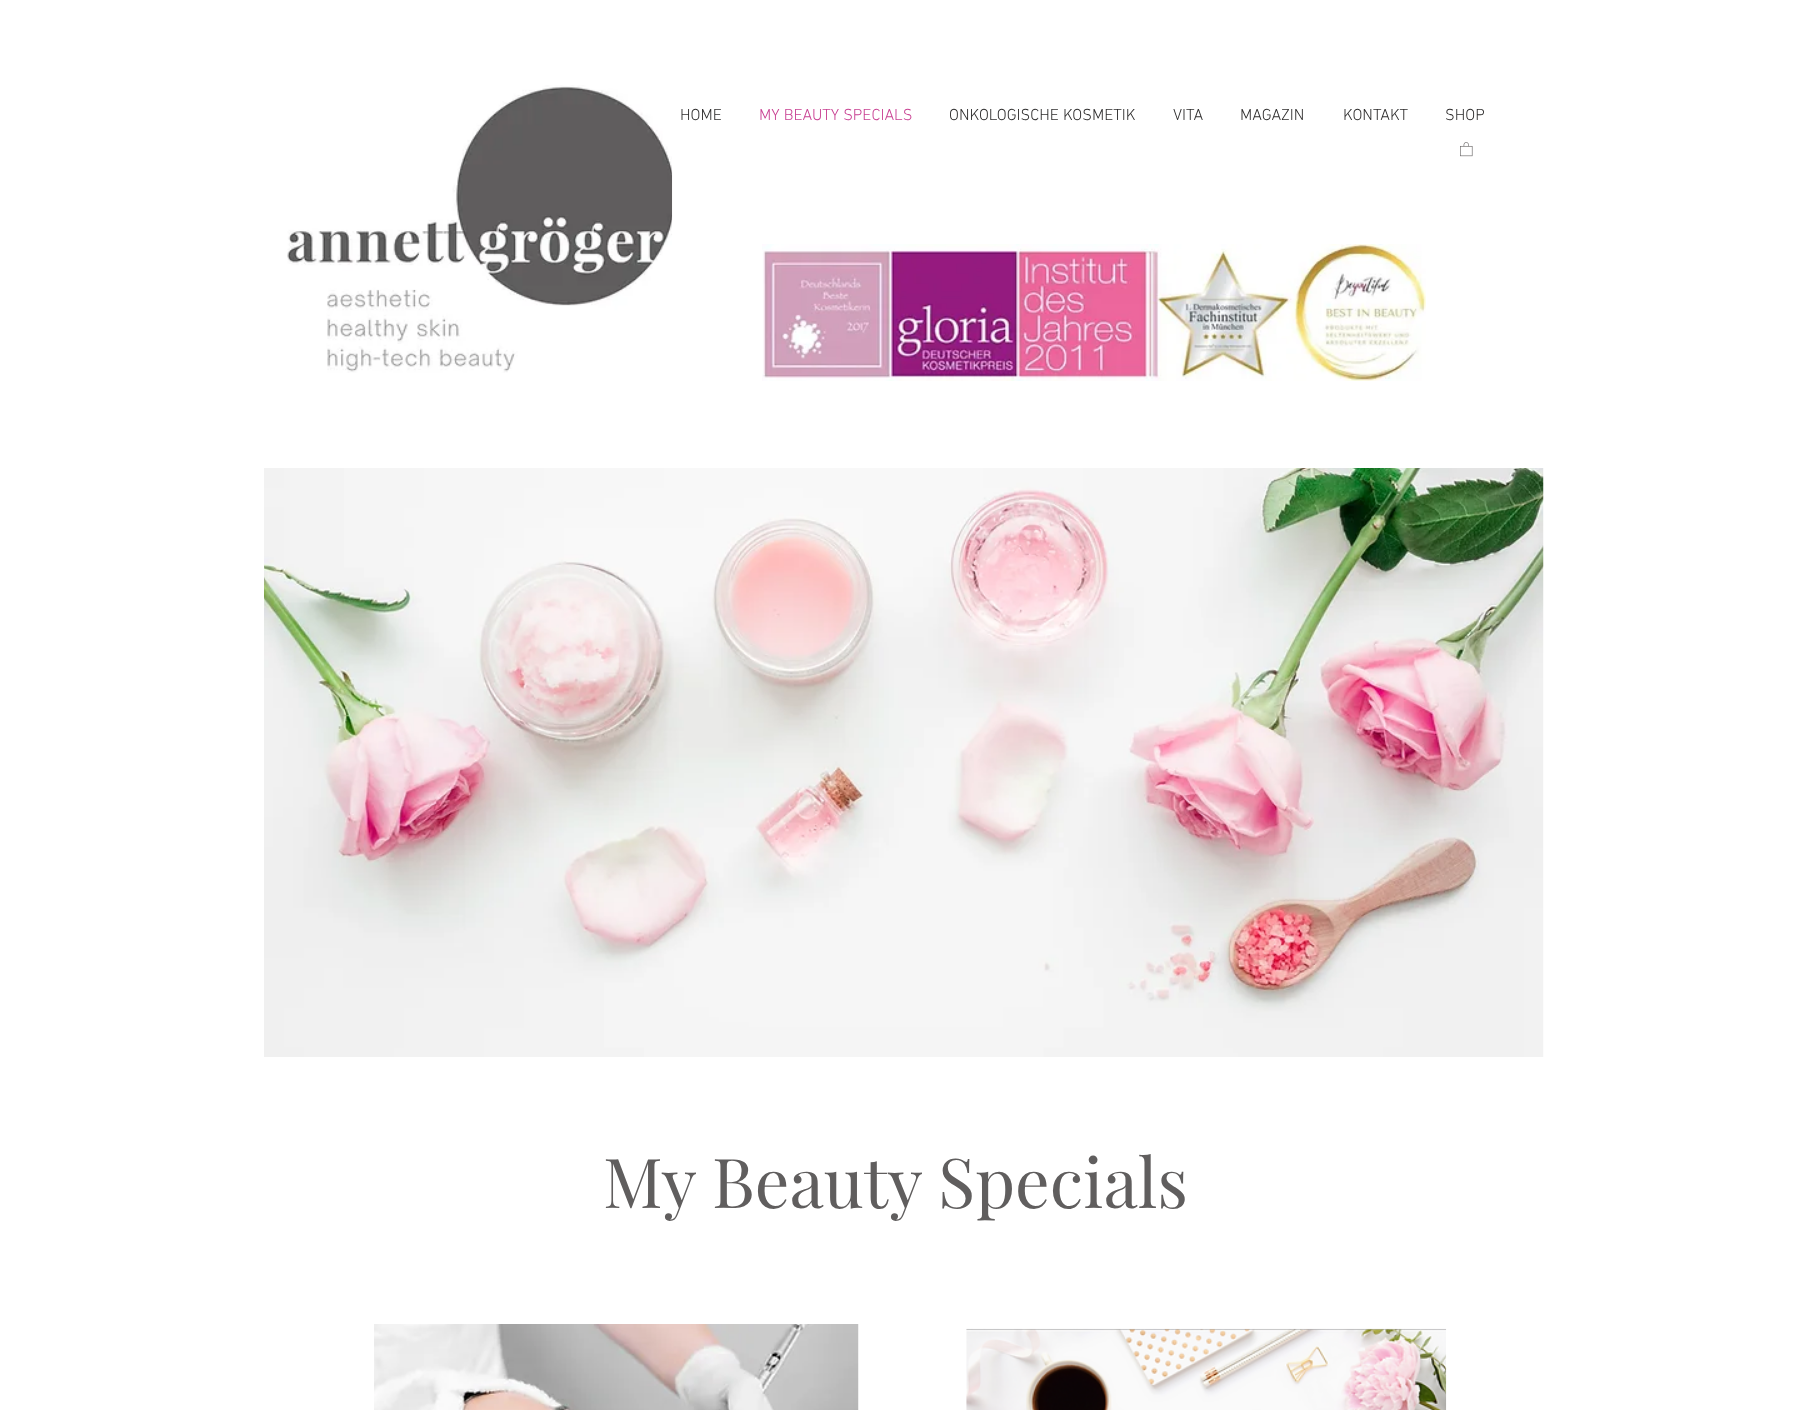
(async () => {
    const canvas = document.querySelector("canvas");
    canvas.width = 1794;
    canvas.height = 1410;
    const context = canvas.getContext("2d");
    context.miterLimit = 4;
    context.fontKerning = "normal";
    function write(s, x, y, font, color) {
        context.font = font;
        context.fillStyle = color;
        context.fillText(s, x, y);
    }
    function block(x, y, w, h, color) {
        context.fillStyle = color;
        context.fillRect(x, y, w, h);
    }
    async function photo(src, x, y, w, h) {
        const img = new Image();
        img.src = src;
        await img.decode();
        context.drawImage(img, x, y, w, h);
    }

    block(0, 0, 1794, 1410, "rgb(255, 255, 255)");
    await photo("media/1.png", 287, 85, 386, 288);
    write("HOME", 680, 120, "300 16.25px 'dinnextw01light'", "rgb(47, 46, 46)");
    write("MY BEAUTY SPECIALS", 759, 120, "300 16.25px 'dinnextw01light'", "rgb(201, 66, 147)");
    write("ONKOLOGISCHE KOSMETIK", 949, 120, "300 16.25px 'dinnextw01light'", "rgb(47, 46, 46)");
    write("VITA", 1173, 120, "300 16.25px 'dinnextw01light'", "rgb(47, 46, 46)");
    write("MAGAZIN", 1240, 120, "300 16.25px 'dinnextw01light'", "rgb(47, 46, 46)");
    write("KONTAKT", 1343, 120, "300 16.25px 'dinnextw01light'", "rgb(47, 46, 46)");
    write("SHOP", 1445, 120, "300 16.25px 'dinnextw01light'", "rgb(47, 46, 46)");
    await photo("media/2.png", 1460, 142, 13, 15);
    await photo("media/3.png", 762, 244, 664, 137);
    await photo("media/4.png", 264, 468, 1280, 589);
    write("My Beauty Specials", 603, 1208, "68.75px Playfair Display", "rgb(96, 94, 94)");
    await photo("media/5.png", 374, 1324, 485, 86);
    await photo("media/6.png", 966, 1328, 481, 82);
})();
